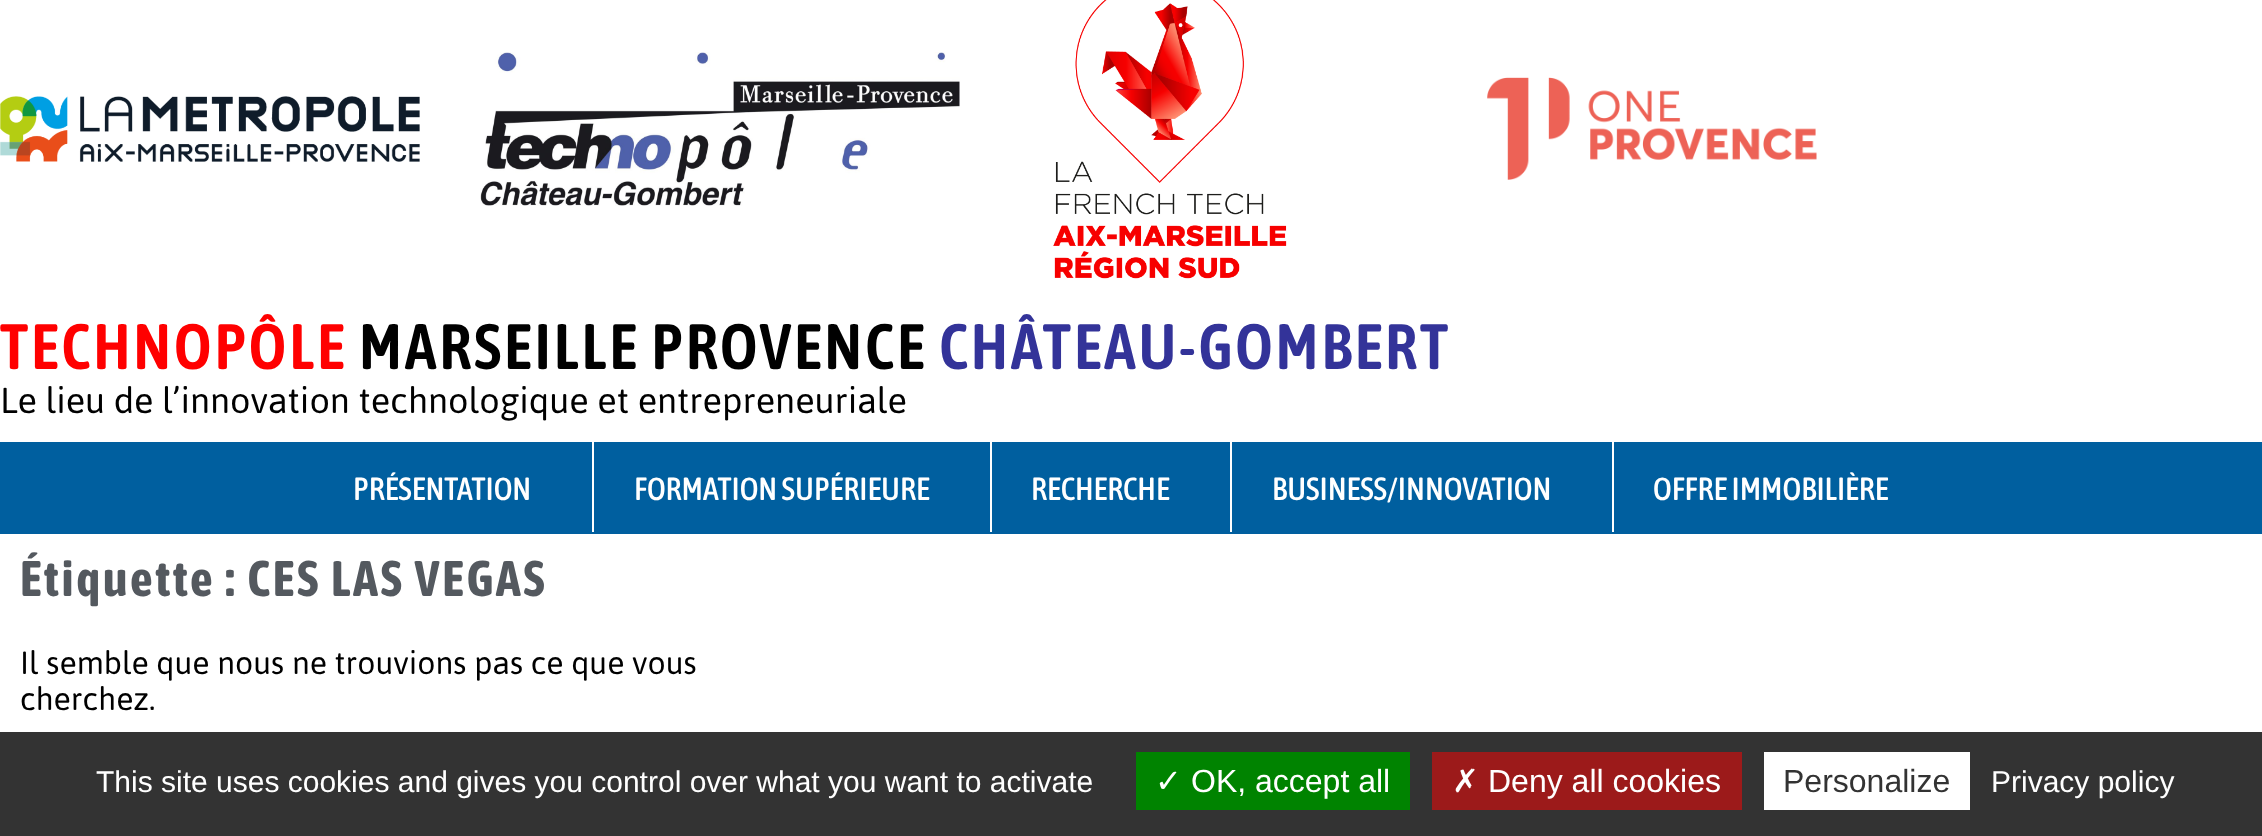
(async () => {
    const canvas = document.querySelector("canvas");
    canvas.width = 2262;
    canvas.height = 836;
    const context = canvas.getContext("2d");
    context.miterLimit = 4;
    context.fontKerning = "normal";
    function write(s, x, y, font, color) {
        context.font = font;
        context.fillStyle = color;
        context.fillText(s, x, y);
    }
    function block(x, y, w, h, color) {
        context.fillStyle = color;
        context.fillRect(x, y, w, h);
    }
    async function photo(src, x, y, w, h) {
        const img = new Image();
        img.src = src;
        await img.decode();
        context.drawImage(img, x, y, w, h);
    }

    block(0, 0, 2262, 836, "rgb(255, 255, 255)");
    await photo("media/1.png", 0, 96, 420, 66);
    await photo("media/2.png", 480, 52, 480, 154);
    await photo("media/3.png", 1053, 0, 234, 279);
    await photo("media/4.png", 1487, 77, 330, 103);
    context.letterSpacing = "3px";
    write("TECHNOPÔLE", 0, 369, "600 64px Asap Condensed", "rgb(255, 0, 0)");
    write("MARSEILLE PROVENCE", 359, 369, "600 64px Asap Condensed", "rgb(0, 0, 0)");
    write("CHÂTEAU-GOMBERT", 939, 369, "600 64px Asap Condensed", "rgb(51, 51, 153)");
    context.letterSpacing = "0px";
    write("Le lieu de l’innovation technologique et entrepreneuriale", 0, 413, "36px Asap", "rgb(0, 0, 0)");
    block(0, 442, 2262, 92, "rgb(0, 95, 159)");
    write("PRÉSENTATION", 353, 500, "500 32px Asap Condensed", "rgb(255, 255, 255)");
    block(592, 442, 2, 90, "rgb(255, 255, 255)");
    write("FORMATION SUPÉRIEURE", 634, 500, "500 32px Asap Condensed", "rgb(255, 255, 255)");
    block(990, 442, 2, 90, "rgb(255, 255, 255)");
    write("RECHERCHE", 1031, 500, "500 32px Asap Condensed", "rgb(255, 255, 255)");
    block(1230, 442, 2, 90, "rgb(255, 255, 255)");
    write("BUSINESS/INNOVATION", 1272, 500, "500 32px Asap Condensed", "rgb(255, 255, 255)");
    block(1612, 442, 2, 90, "rgb(255, 255, 255)");
    write("OFFRE IMMOBILIÈRE", 1653, 500, "500 32px Asap Condensed", "rgb(255, 255, 255)");
    context.letterSpacing = "3px";
    write("Étiquette : CES LAS VEGAS", 20, 596, "bold 50px Asap Condensed", "rgb(84, 89, 95)");
    context.letterSpacing = "0px";
    write("Il semble que nous ne trouvions pas ce que vous", 20, 674, "32px Asap", "rgb(0, 0, 0)");
    write("cherchez.", 20, 710, "32px Asap", "rgb(0, 0, 0)");
    block(0, 732, 2262, 104, "rgb(51, 51, 51)");
    write("This site uses cookies and gives you control over what you want to activate", 96, 792, "30px Liberation Sans", "rgb(255, 255, 255)");
    block(1136, 752, 274, 58, "rgb(0, 131, 0)");
    write("✓", 1155, 792, "32px DejaVu Sans", "rgb(255, 255, 255)");
    write("OK, accept all", 1191, 792, "32px Liberation Sans", "rgb(255, 255, 255)");
    block(1432, 752, 310, 58, "rgb(156, 26, 26)");
    write("✗", 1452, 792, "32px DejaVu Sans", "rgb(255, 255, 255)");
    write("Deny all cookies", 1488, 792, "32px Liberation Sans", "rgb(255, 255, 255)");
    block(1764, 752, 206, 58, "rgb(255, 255, 255)");
    write("Personalize", 1783, 792, "32px Liberation Sans", "rgb(51, 51, 51)");
    write("Privacy policy", 1991, 792, "30px Liberation Sans", "rgb(255, 255, 255)");
})();
